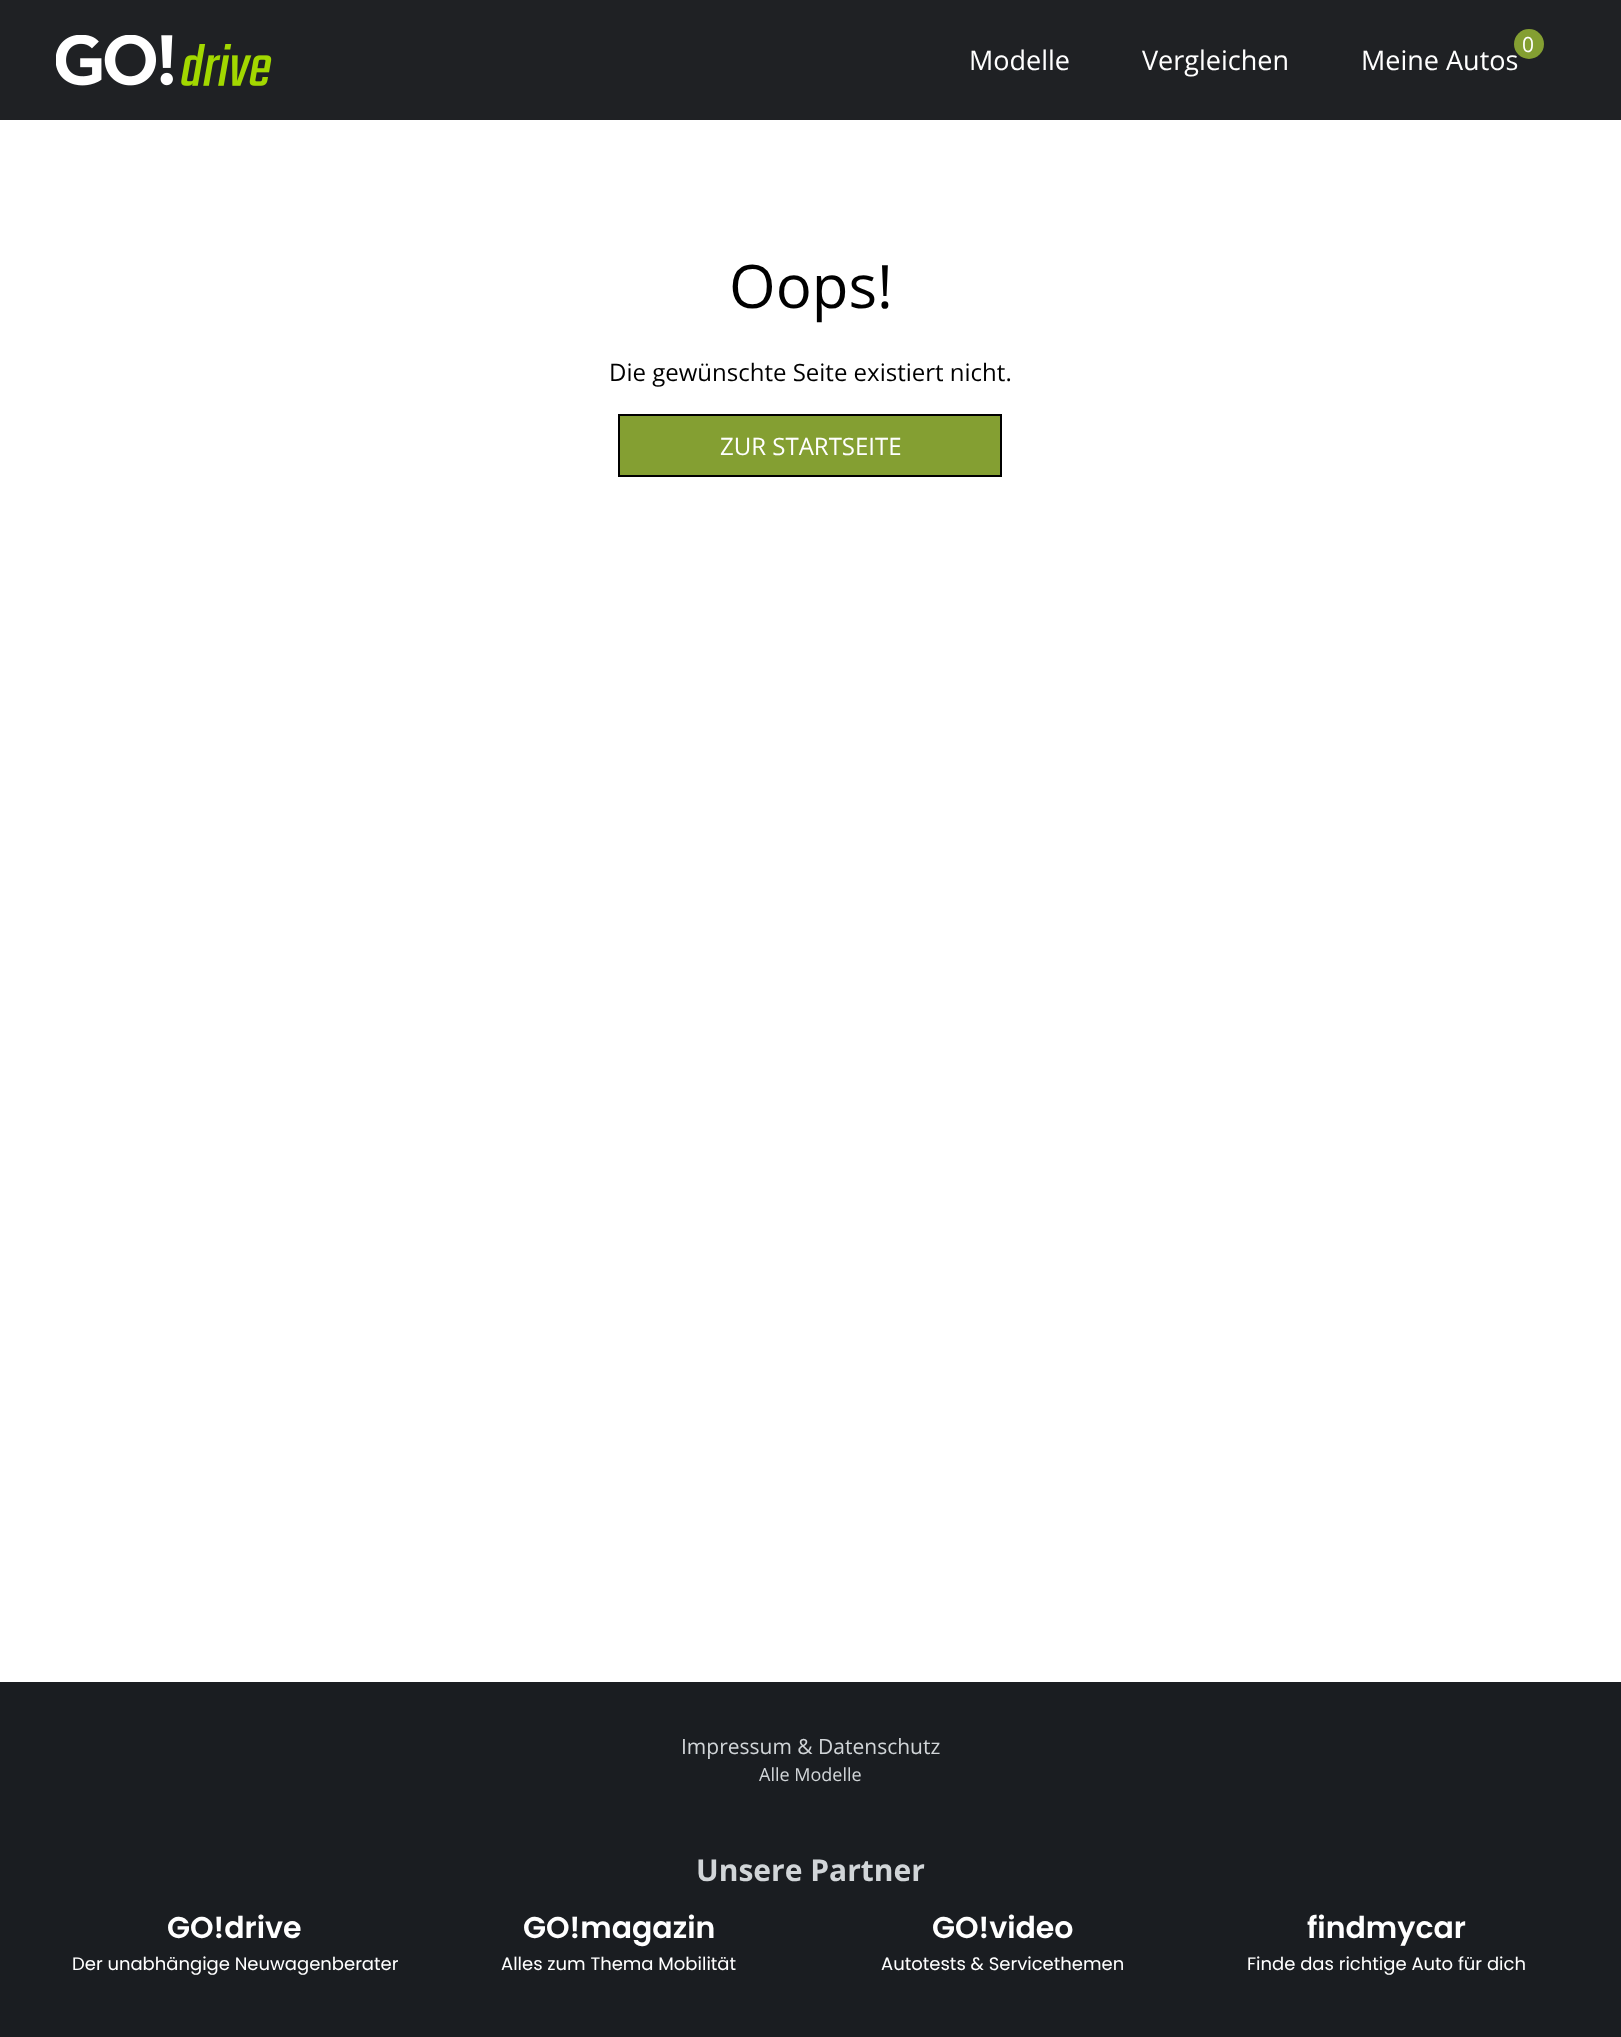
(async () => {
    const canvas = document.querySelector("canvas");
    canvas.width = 1621;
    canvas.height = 2037;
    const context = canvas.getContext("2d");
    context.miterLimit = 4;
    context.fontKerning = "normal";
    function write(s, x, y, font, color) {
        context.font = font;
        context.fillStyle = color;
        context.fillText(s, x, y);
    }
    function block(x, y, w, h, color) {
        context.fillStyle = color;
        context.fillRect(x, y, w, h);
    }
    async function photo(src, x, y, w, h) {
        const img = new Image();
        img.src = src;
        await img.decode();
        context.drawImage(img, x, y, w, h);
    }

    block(0, 0, 1621, 2037, "rgb(255, 255, 255)");
    block(0, 0, 1621, 120, "rgb(31, 33, 36)");
    await photo("media/1.png", 56, 35, 216, 51);
    write("Modelle", 969, 70, "27px Open Sans", "rgb(255, 255, 255)");
    write("Vergleichen", 1142, 70, "27px Open Sans", "rgb(255, 255, 255)");
    write("Meine Autos", 1361, 70, "27px Open Sans", "rgb(255, 255, 255)");
    context.fillStyle = "rgb(132, 159, 50)";
    context.beginPath();
    context.arc(1529, 44, 15, 0, Math.PI * 2);
    context.fill();
    write("0", 1522, 52, "21px Open Sans", "rgb(255, 255, 255)");
    write("Oops!", 729, 308, "60px Open Sans", "rgb(0, 0, 0)");
    write("Die gewünschte Seite existiert nicht.", 609, 381, "24px Open Sans", "rgb(0, 0, 0)");
    context.fillStyle = "rgb(132, 159, 50)";
    context.beginPath();
    context.rect(619, 415, 382, 61);
    context.fill();
    context.strokeStyle = "rgb(0, 0, 0)";
    context.lineWidth = 2;
    context.stroke();
    write("ZUR STARTSEITE", 720, 455, "24px Open Sans", "rgb(255, 255, 255)");
    block(0, 1682, 1621, 355, "rgb(26, 29, 33)");
    write("Impressum & Datenschutz", 681, 1754, "21px Open Sans", "rgb(209, 213, 216)");
    write("Alle Modelle", 759, 1781, "18px Open Sans", "rgb(209, 213, 216)");
    write("Unsere Partner", 696, 1881, "bold 30px Open Sans", "rgb(209, 213, 216)");
    write("GO!drive", 167, 1938, "600 30px Poppins", "rgb(255, 255, 255)");
    write("Der unabhängige Neuwagenberater", 72, 1970, "18px Poppins", "rgb(255, 255, 255)");
    write("GO!magazin", 523, 1938, "600 30px Poppins", "rgb(255, 255, 255)");
    write("Alles zum Thema Mobilität", 501, 1970, "18px Poppins", "rgb(255, 255, 255)");
    write("GO!video", 932, 1938, "600 30px Poppins", "rgb(255, 255, 255)");
    write("Autotests & Servicethemen", 881, 1970, "18px Poppins", "rgb(255, 255, 255)");
    write("findmycar", 1307, 1938, "600 30px Poppins", "rgb(255, 255, 255)");
    write("Finde das richtige Auto für dich", 1247, 1970, "18px Poppins", "rgb(255, 255, 255)");
})();
